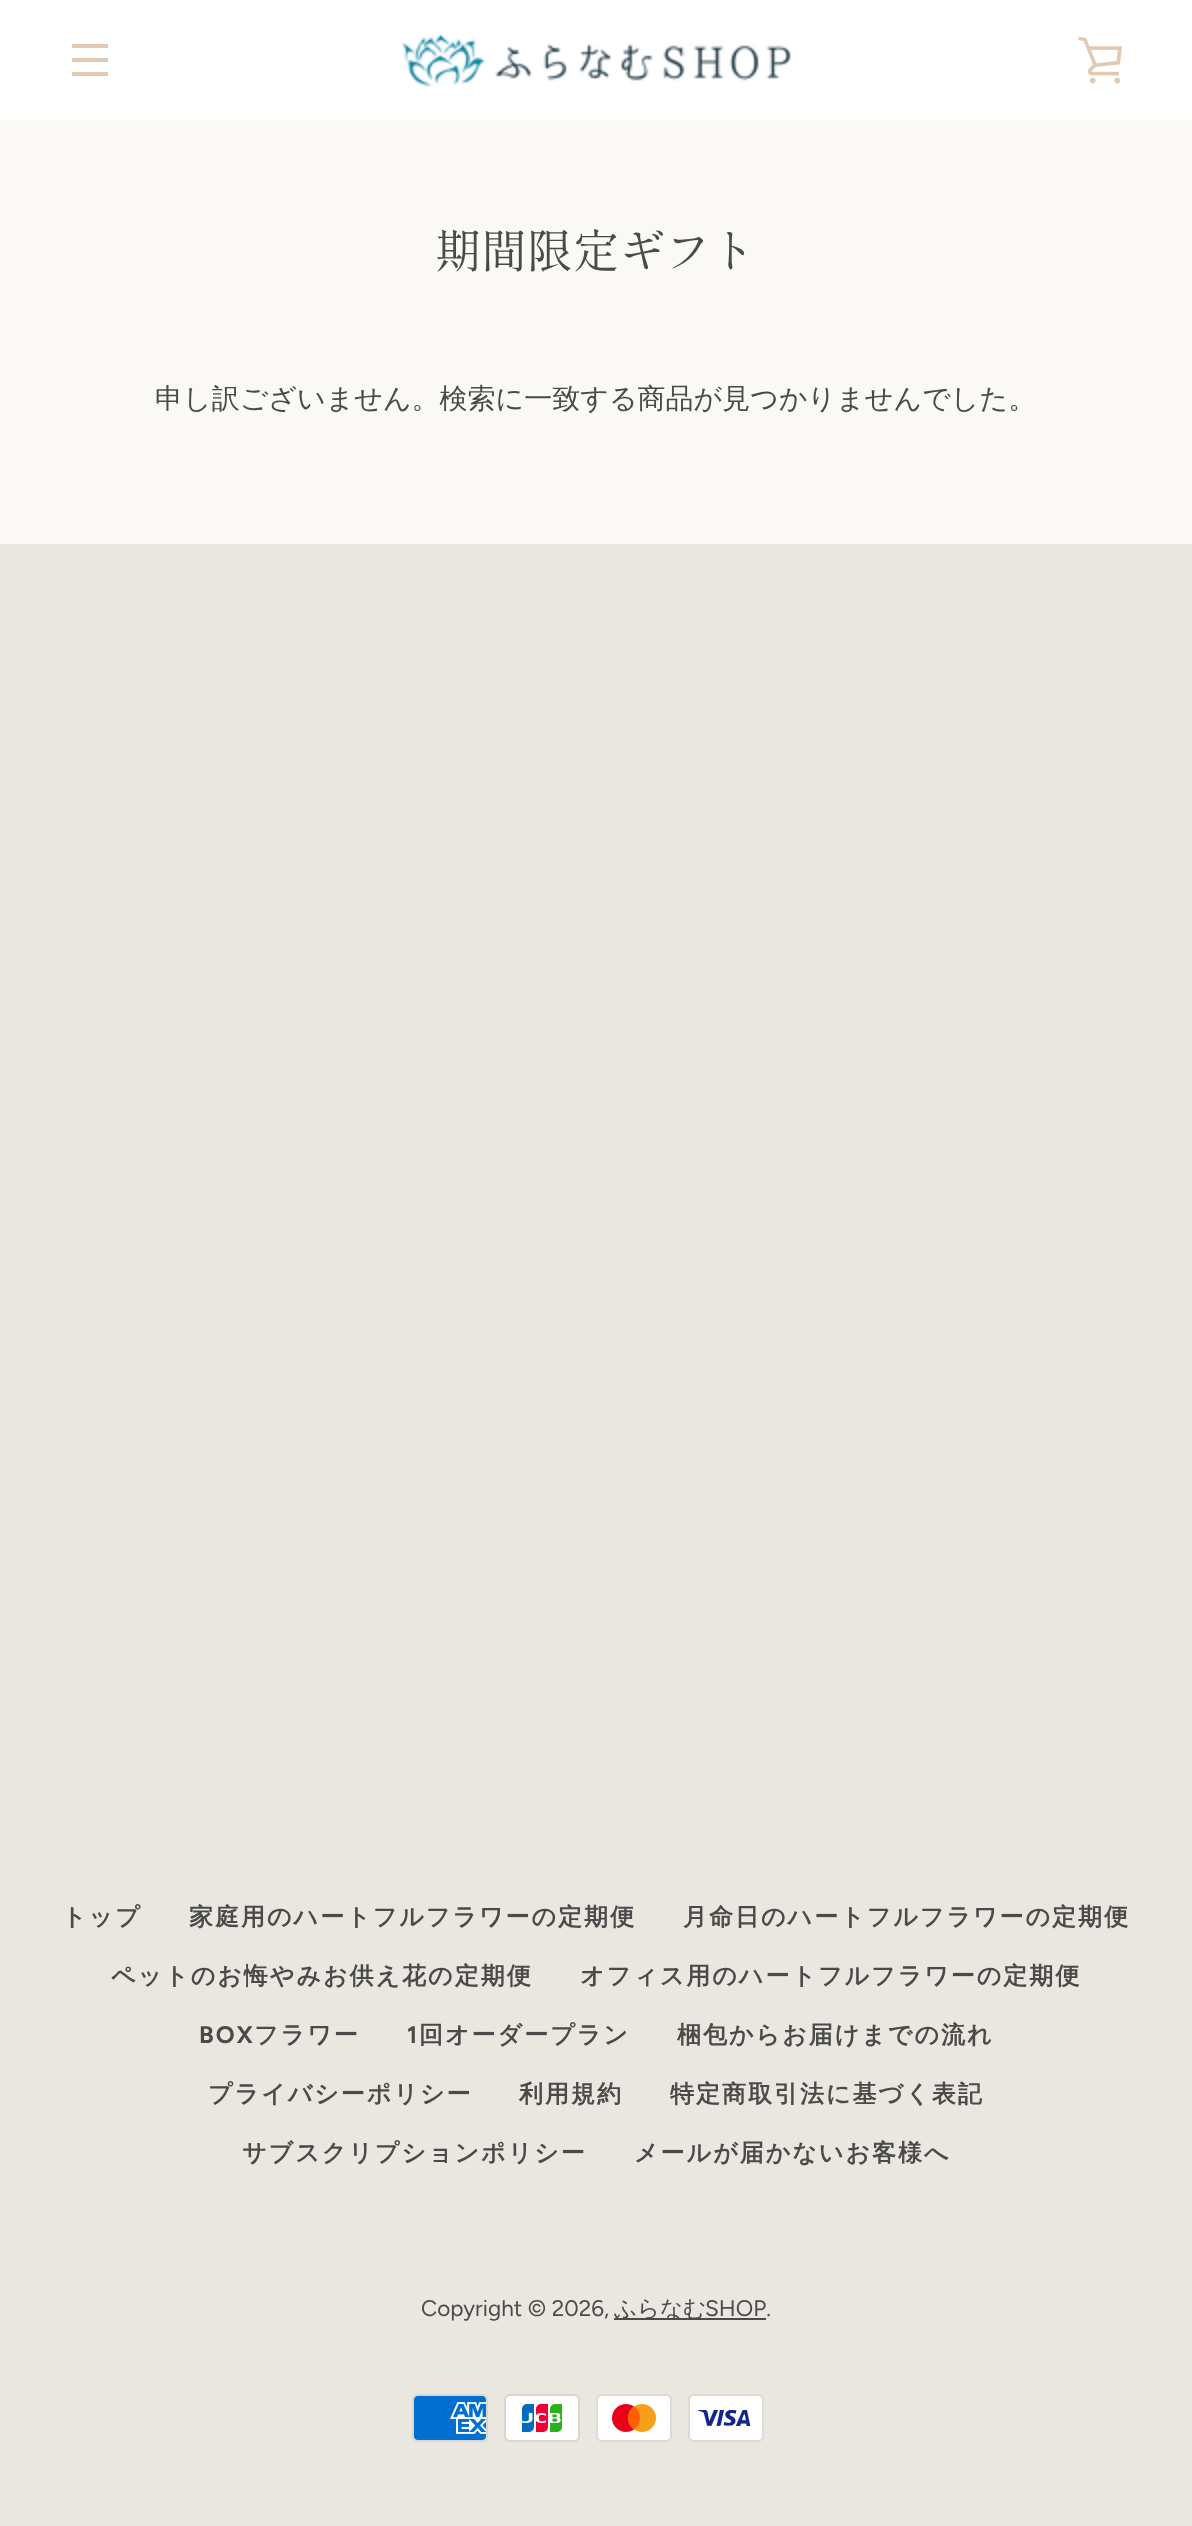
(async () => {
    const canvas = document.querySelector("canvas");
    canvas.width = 1192;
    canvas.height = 2526;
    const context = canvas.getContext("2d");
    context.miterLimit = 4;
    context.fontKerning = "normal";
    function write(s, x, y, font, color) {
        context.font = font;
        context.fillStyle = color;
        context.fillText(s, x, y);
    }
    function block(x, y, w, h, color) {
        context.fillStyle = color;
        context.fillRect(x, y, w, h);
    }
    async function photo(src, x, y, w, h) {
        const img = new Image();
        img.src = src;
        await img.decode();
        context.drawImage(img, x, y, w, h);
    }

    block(0, 0, 1192, 2526, "rgb(234, 231, 224)");
    block(0, 120, 1192, 424, "rgb(250, 249, 246)");
    block(0, 0, 1192, 120, "rgb(255, 255, 255)");
    block(72, 44, 36, 4, "rgb(225, 201, 180)");
    block(72, 58, 36, 4, "rgb(225, 201, 180)");
    block(72, 72, 36, 4, "rgb(225, 201, 180)");
    await photo("media/1.png", 401, 33, 390, 54);
    await photo("media/2.png", 1078, 36, 44, 48);
    write("期間限定ギフト", 435, 268, "46px Shippori Mincho", "rgb(74, 74, 74)");
    write("申し訳ございません。検索に一致する商品が見つかりませんでした。", 155, 408, "500 28px WenQuanYi Zen Hei", "rgb(74, 74, 74)");
    context.letterSpacing = "2px";
    write("トップ", 62, 1925, "bold 24px WenQuanYi Zen Hei", "rgb(74, 74, 74)");
    write("家庭用のハートフルフラワーの定期便", 189, 1925, "bold 24px WenQuanYi Zen Hei", "rgb(74, 74, 74)");
    write("月命日のハートフルフラワーの定期便", 683, 1925, "bold 24px WenQuanYi Zen Hei", "rgb(74, 74, 74)");
    write("ペットのお悔やみお供え花の定期便", 111, 1984, "bold 24px WenQuanYi Zen Hei", "rgb(74, 74, 74)");
    write("オフィス用のハートフルフラワーの定期便", 580, 1984, "bold 24px WenQuanYi Zen Hei", "rgb(74, 74, 74)");
    write("BOX", 199, 2043, "bold 24px Figtree", "rgb(74, 74, 74)");
    write("フラワー", 254, 2043, "bold 24px WenQuanYi Zen Hei", "rgb(74, 74, 74)");
    write("1", 407, 2043, "bold 24px Figtree", "rgb(74, 74, 74)");
    write("回オーダープラン", 419, 2043, "bold 24px WenQuanYi Zen Hei", "rgb(74, 74, 74)");
    write("梱包からお届けまでの流れ", 677, 2043, "bold 24px WenQuanYi Zen Hei", "rgb(74, 74, 74)");
    write("プライバシーポリシー", 208, 2102, "bold 24px WenQuanYi Zen Hei", "rgb(74, 74, 74)");
    write("利用規約", 519, 2102, "bold 24px WenQuanYi Zen Hei", "rgb(74, 74, 74)");
    write("特定商取引法に基づく表記", 670, 2102, "bold 24px WenQuanYi Zen Hei", "rgb(74, 74, 74)");
    write("サブスクリプションポリシー", 242, 2161, "bold 24px WenQuanYi Zen Hei", "rgb(74, 74, 74)");
    write("メールが届かないお客様へ", 634, 2161, "bold 24px WenQuanYi Zen Hei", "rgb(74, 74, 74)");
    context.letterSpacing = "0px";
    write("Copyright © 2026,", 421, 2316, "22.5px Figtree", "rgb(74, 74, 74)");
    block(614, 2318, 152, 2, "rgb(74, 74, 74)");
    write("ふらなむ", 614, 2316, "500 22.5px WenQuanYi Zen Hei", "rgb(74, 74, 74)");
    write("SHOP.", 705, 2316, "22.5px Figtree", "rgb(74, 74, 74)");
    await photo("media/3.png", 412, 2394, 76, 48);
    await photo("media/4.png", 504, 2394, 76, 48);
    await photo("media/5.png", 596, 2394, 76, 48);
    await photo("media/6.png", 688, 2394, 76, 48);
})();
